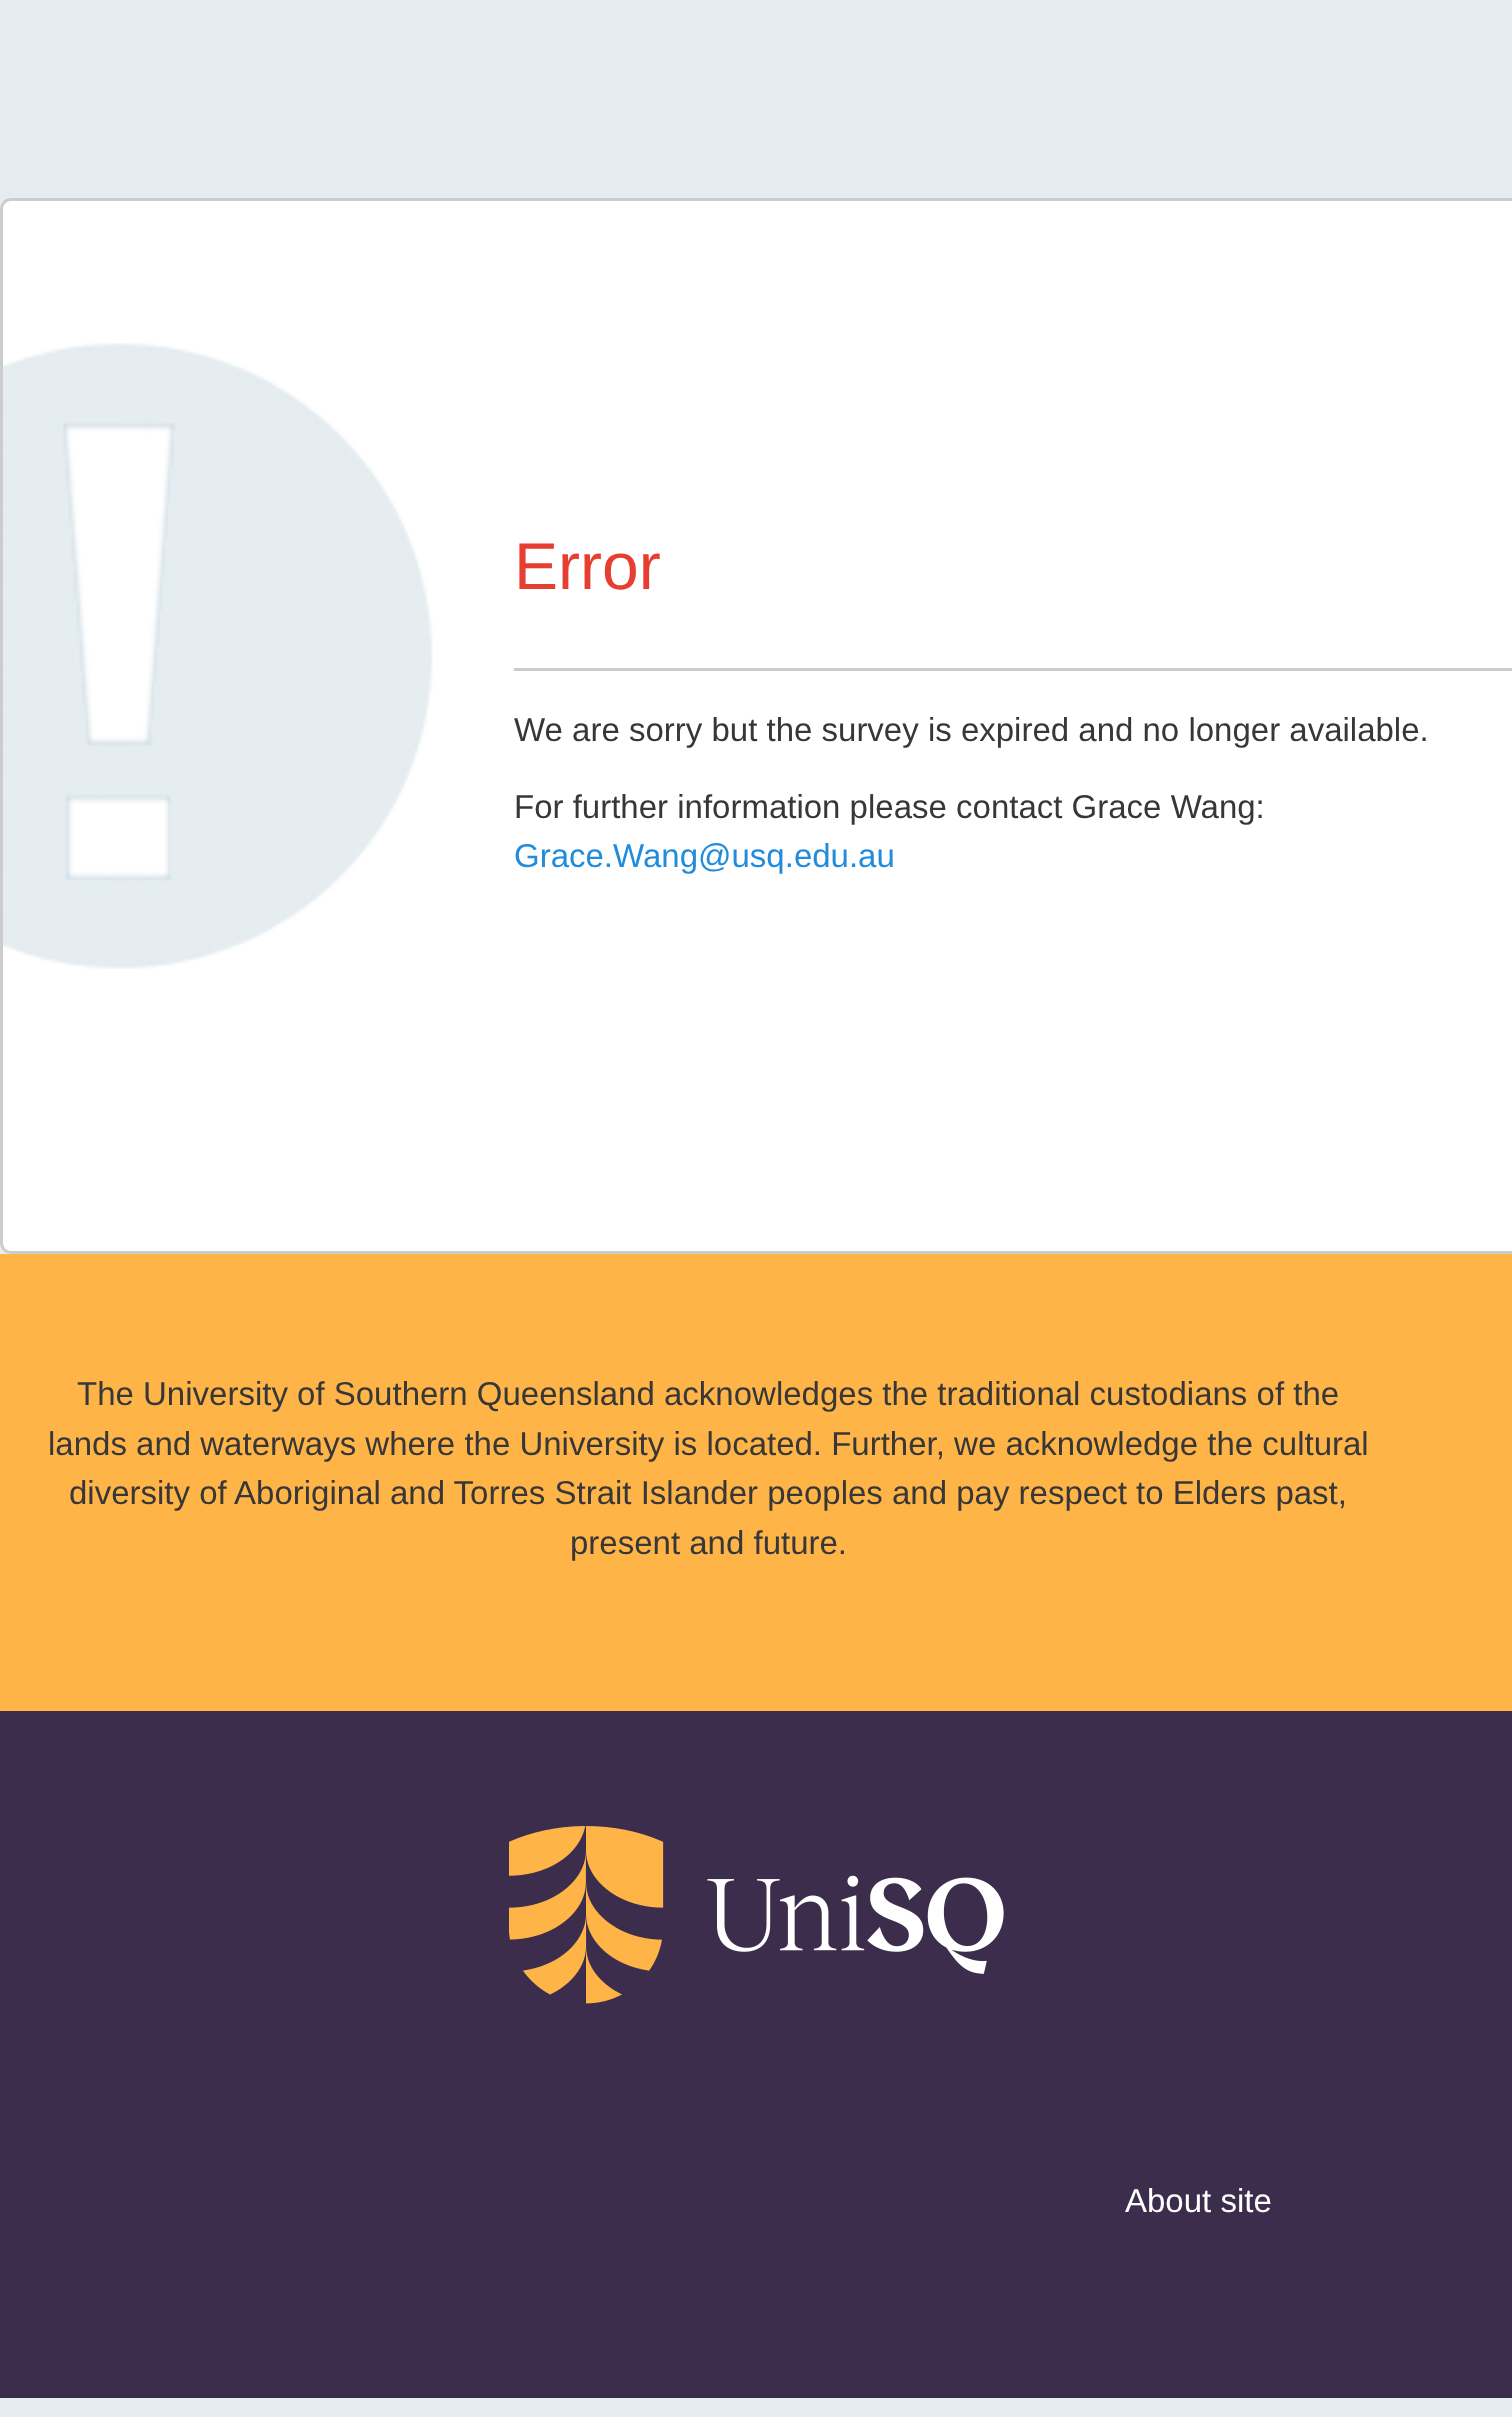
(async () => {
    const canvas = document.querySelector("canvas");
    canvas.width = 1512;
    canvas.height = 2417;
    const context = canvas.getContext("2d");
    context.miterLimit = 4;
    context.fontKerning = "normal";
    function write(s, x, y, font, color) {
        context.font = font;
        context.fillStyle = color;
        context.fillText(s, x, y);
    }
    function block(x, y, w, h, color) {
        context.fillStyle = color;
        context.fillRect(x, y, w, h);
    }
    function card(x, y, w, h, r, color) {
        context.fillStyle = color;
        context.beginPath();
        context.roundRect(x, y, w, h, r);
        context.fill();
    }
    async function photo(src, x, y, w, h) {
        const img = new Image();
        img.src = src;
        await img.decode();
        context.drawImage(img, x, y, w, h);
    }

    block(0, 0, 1512, 2417, "rgb(231, 236, 240)");
    card(0, 198, 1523, 1056, 11, "rgb(255, 255, 255)");
    await photo("media/1.png", 3, 343, 430, 626);
    context.beginPath();
    context.roundRect(1.5, 199.5, 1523, 1053, 9.5);
    context.strokeStyle = "rgb(204, 204, 204)";
    context.lineWidth = 3;
    context.stroke();
    block(514, 668, 998, 3, "rgb(204, 204, 204)");
    write("Error", 514, 589, "66px Liberation Sans", "rgb(230, 62, 48)");
    write("We are sorry but the survey is expired and no longer available.", 514, 741, "33px Liberation Sans", "rgb(55, 55, 55)");
    write("For further information please contact Grace Wang:", 514, 818, "33px Liberation Sans", "rgb(55, 55, 55)");
    write("Grace.Wang@usq.edu.au", 514, 867, "33px Liberation Sans", "rgb(33, 139, 220)");
    block(0, 1254, 1512, 457, "rgb(255, 180, 72)");
    write("The University of Southern Queensland acknowledges the traditional custodians of the", 77, 1405, "33px Liberation Sans", "rgb(55, 55, 55)");
    write("lands and waterways where the University is located. Further, we acknowledge the cultural", 48, 1455, "33px Liberation Sans", "rgb(55, 55, 55)");
    write("diversity of Aboriginal and Torres Strait Islander peoples and pay respect to Elders past,", 69, 1504, "33px Liberation Sans", "rgb(55, 55, 55)");
    write("present and future.", 570, 1554, "33px Liberation Sans", "rgb(55, 55, 55)");
    block(0, 1711, 1512, 687, "rgb(60, 45, 77)");
    await photo("media/2.png", 509, 1826, 495, 178);
    write("About site", 1125, 2212, "33px Liberation Sans", "rgb(255, 255, 255)");
})();
